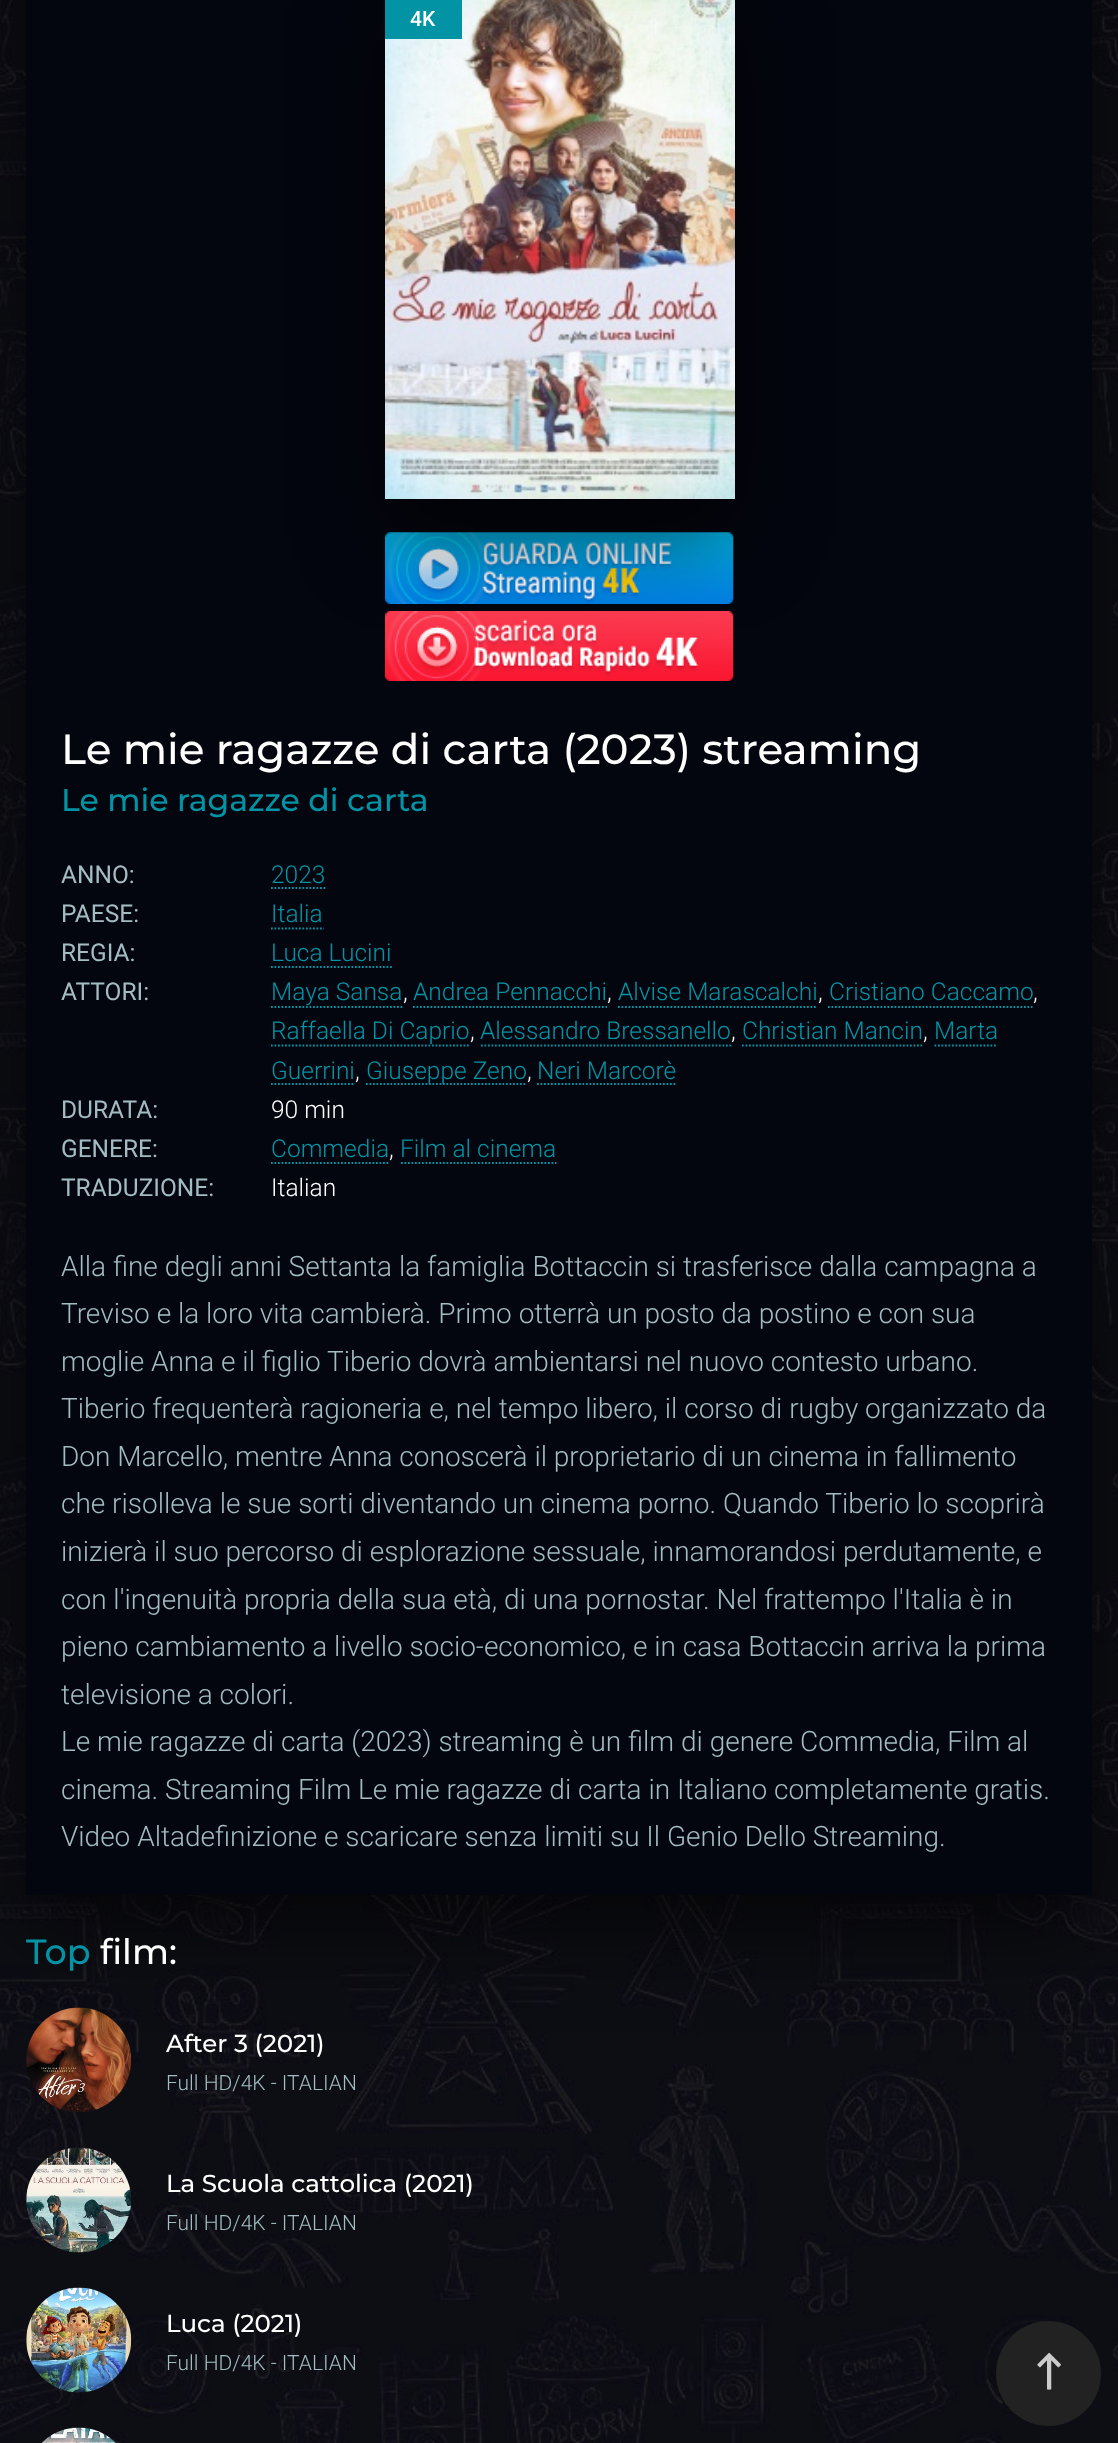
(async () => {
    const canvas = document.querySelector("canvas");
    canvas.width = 1118;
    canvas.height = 2443;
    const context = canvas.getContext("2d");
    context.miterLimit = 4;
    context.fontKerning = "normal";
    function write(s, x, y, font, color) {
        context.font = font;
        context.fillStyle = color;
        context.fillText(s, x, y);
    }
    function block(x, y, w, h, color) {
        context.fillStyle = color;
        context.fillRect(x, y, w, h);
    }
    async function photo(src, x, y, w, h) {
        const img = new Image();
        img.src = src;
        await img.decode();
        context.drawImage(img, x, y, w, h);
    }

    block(0, 0, 1118, 2443, "rgb(255, 255, 255)");
    await photo("media/1.png", 0, 0, 1118, 2443);
    context.fillStyle = "rgba(0, 0, 0, 0.6)";
    context.filter = "blur(44px)";
    context.beginPath();
    context.rect(26, -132, 1066, 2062);
    context.fill();
    context.filter = "none";
    block(26, 0, 1066, 1895, "rgb(4, 6, 15)");
    await photo("media/3.png", 385, 532, 349, 72);
    await photo("media/4.png", 385, 611, 349, 70);
    context.fillStyle = "rgba(0, 0, 0, 0.6)";
    context.filter = "blur(44px)";
    context.beginPath();
    context.rect(385, 9, 350, 525);
    context.fill();
    context.filter = "none";
    await photo("media/2.png", 385, 0, 350, 499);
    block(385, 0, 77, 39, "rgb(2, 148, 165)");
    write("4K", 410, 26, "500 21px Roboto", "rgb(255, 255, 255)");
    write("Le mie ragazze di carta (2023) streaming", 61, 764, "500 42px Montserrat", "rgb(255, 255, 255)");
    write("Le mie ragazze di carta", 61, 811, "500 31.5px Montserrat", "rgb(2, 148, 165)");
    write("ANNO:", 61, 883, "24.5px Roboto", "rgb(162, 188, 193)");
    write("2023", 271, 883, "300 24.5px Roboto", "rgb(2, 148, 165)");
    context.beginPath();
    context.moveTo(271, 888);
    context.lineTo(325.5, 888);
    context.strokeStyle = "rgb(2, 148, 165)";
    context.lineWidth = 1.8;
    context.setLineDash([1.75, 1.75]);
    context.stroke();
    write("PAESE:", 61, 922, "24.5px Roboto", "rgb(162, 188, 193)");
    write("Italia", 271, 922, "300 24.5px Roboto", "rgb(2, 148, 165)");
    context.beginPath();
    context.moveTo(271, 928.5);
    context.lineTo(324, 928.5);
    context.stroke();
    write("REGIA:", 61, 961, "24.5px Roboto", "rgb(162, 188, 193)");
    write("Luca Lucini", 271, 961, "300 24.5px Roboto", "rgb(2, 148, 165)");
    context.beginPath();
    context.moveTo(271, 967);
    context.lineTo(392, 967);
    context.stroke();
    write("ATTORI:", 61, 1000, "24.5px Roboto", "rgb(162, 188, 193)");
    write("Maya Sansa", 271, 1000, "300 24.5px Roboto", "rgb(2, 148, 165)");
    context.beginPath();
    context.moveTo(271, 1007);
    context.lineTo(402.5, 1007);
    context.stroke();
    write(",", 403, 1000, "300 24.5px Roboto", "rgb(255, 255, 255)");
    write("Andrea Pennacchi", 413, 1000, "300 24.5px Roboto", "rgb(2, 148, 165)");
    context.beginPath();
    context.moveTo(413, 1007);
    context.lineTo(607, 1007);
    context.stroke();
    write(",", 607, 1000, "300 24.5px Roboto", "rgb(255, 255, 255)");
    write("Alvise Marascalchi", 618, 1000, "300 24.5px Roboto", "rgb(2, 148, 165)");
    context.beginPath();
    context.moveTo(618, 1007);
    context.lineTo(817, 1007);
    context.stroke();
    write(",", 818, 1000, "300 24.5px Roboto", "rgb(255, 255, 255)");
    write("Cristiano Caccamo", 829, 1000, "300 24.5px Roboto", "rgb(2, 148, 165)");
    context.beginPath();
    context.moveTo(828, 1007);
    context.lineTo(1032.5, 1007);
    context.stroke();
    write(",", 1033, 1000, "300 24.5px Roboto", "rgb(255, 255, 255)");
    write("Raffaella Di Caprio", 271, 1039, "300 24.5px Roboto", "rgb(2, 148, 165)");
    context.beginPath();
    context.moveTo(271, 1045.5);
    context.lineTo(469, 1045.5);
    context.stroke();
    write(",", 470, 1039, "300 24.5px Roboto", "rgb(255, 255, 255)");
    write("Alessandro Bressanello", 480, 1039, "300 24.5px Roboto", "rgb(2, 148, 165)");
    context.beginPath();
    context.moveTo(481, 1045.5);
    context.lineTo(731.5, 1045.5);
    context.stroke();
    write(",", 731, 1039, "300 24.5px Roboto", "rgb(255, 255, 255)");
    write("Christian Mancin", 742, 1039, "300 24.5px Roboto", "rgb(2, 148, 165)");
    context.beginPath();
    context.moveTo(742, 1045.5);
    context.lineTo(922, 1045.5);
    context.stroke();
    write(",", 923, 1039, "300 24.5px Roboto", "rgb(255, 255, 255)");
    write("Marta", 934, 1039, "300 24.5px Roboto", "rgb(2, 148, 165)");
    context.beginPath();
    context.moveTo(934.5, 1045.5);
    context.lineTo(997.5, 1045.5);
    context.stroke();
    write("Guerrini", 271, 1079, "300 24.5px Roboto", "rgb(2, 148, 165)");
    context.beginPath();
    context.moveTo(271, 1084);
    context.lineTo(355, 1084);
    context.stroke();
    write(",", 355, 1079, "300 24.5px Roboto", "rgb(255, 255, 255)");
    context.beginPath();
    context.moveTo(366, 1084);
    context.lineTo(527, 1084);
    context.stroke();
    write("Giuseppe Zeno", 366, 1079, "300 24.5px Roboto", "rgb(2, 148, 165)");
    write(",", 527, 1079, "300 24.5px Roboto", "rgb(255, 255, 255)");
    write("Neri Marcorè", 537, 1079, "300 24.5px Roboto", "rgb(2, 148, 165)");
    context.beginPath();
    context.moveTo(537, 1084);
    context.lineTo(677, 1084);
    context.stroke();
    write("DURATA:", 61, 1118, "24.5px Roboto", "rgb(162, 188, 193)");
    write("90 min", 271, 1118, "300 24.5px Roboto", "rgb(255, 255, 255)");
    write("GENERE:", 61, 1157, "24.5px Roboto", "rgb(162, 188, 193)");
    write("Commedia", 271, 1157, "300 24.5px Roboto", "rgb(2, 148, 165)");
    context.beginPath();
    context.moveTo(271, 1163);
    context.lineTo(388.5, 1163);
    context.stroke();
    write(",", 389, 1157, "300 24.5px Roboto", "rgb(255, 255, 255)");
    write("Film al cinema", 400, 1157, "300 24.5px Roboto", "rgb(2, 148, 165)");
    context.beginPath();
    context.moveTo(401, 1163);
    context.lineTo(556.5, 1163);
    context.stroke();
    write("TRADUZIONE:", 61, 1196, "24.5px Roboto", "rgb(162, 188, 193)");
    write("Italian", 271, 1196, "300 24.5px Roboto", "rgb(255, 255, 255)");
    write("Alla fine degli anni Settanta la famiglia Bottaccin si trasferisce dalla campagna a", 61, 1276, "300 28px Roboto", "rgb(162, 188, 193)");
    write("Treviso e la loro vita cambierà. Primo otterrà un posto da postino e con sua", 61, 1323, "300 28px Roboto", "rgb(162, 188, 193)");
    write("moglie Anna e il figlio Tiberio dovrà ambientarsi nel nuovo contesto urbano.", 61, 1371, "300 28px Roboto", "rgb(162, 188, 193)");
    write("Tiberio frequenterà ragioneria e, nel tempo libero, il corso di rugby organizzato da", 61, 1418, "300 28px Roboto", "rgb(162, 188, 193)");
    write("Don Marcello, mentre Anna conoscerà il proprietario di un cinema in fallimento", 61, 1466, "300 28px Roboto", "rgb(162, 188, 193)");
    write("che risolleva le sue sorti diventando un cinema porno. Quando Tiberio lo scoprirà", 61, 1513, "300 28px Roboto", "rgb(162, 188, 193)");
    write("inizierà il suo percorso di esplorazione sessuale, innamorandosi perdutamente, e", 61, 1561, "300 28px Roboto", "rgb(162, 188, 193)");
    write("con l'ingenuità propria della sua età, di una pornostar. Nel frattempo l'Italia è in", 61, 1609, "300 28px Roboto", "rgb(162, 188, 193)");
    write("pieno cambiamento a livello socio-economico, e in casa Bottaccin arriva la prima", 61, 1656, "300 28px Roboto", "rgb(162, 188, 193)");
    write("televisione a colori.", 61, 1704, "300 28px Roboto", "rgb(162, 188, 193)");
    write("Le mie ragazze di carta (2023) streaming è un film di genere Commedia, Film al", 61, 1751, "300 28px Roboto", "rgb(162, 188, 193)");
    write("cinema. Streaming Film Le mie ragazze di carta in Italiano completamente gratis.", 61, 1799, "300 28px Roboto", "rgb(162, 188, 193)");
    write("Video Altadefinizione e scaricare senza limiti su Il Genio Dello Streaming.", 61, 1846, "300 28px Roboto", "rgb(162, 188, 193)");
    write("Top", 26, 1964, "500 35px Montserrat", "rgb(2, 148, 165)");
    write("film:", 100, 1964, "500 35px Montserrat", "rgb(255, 255, 255)");
    await photo("media/5.png", 26, 2007, 106, 106);
    write("After 3 (2021)", 166, 2052, "500 24.5px Montserrat", "rgb(255, 255, 255)");
    write("Full HD/4K - ITALIAN", 166, 2090, "300 21px Roboto", "rgb(162, 188, 193)");
    await photo("media/6.png", 26, 2147, 105, 106);
    write("La Scuola cattolica (2021)", 166, 2192, "500 24.5px Montserrat", "rgb(255, 255, 255)");
    write("Full HD/4K - ITALIAN", 166, 2230, "300 21px Roboto", "rgb(162, 188, 193)");
    await photo("media/7.png", 26, 2287, 106, 106);
    write("Luca (2021)", 166, 2332, "500 24.5px Montserrat", "rgb(255, 255, 255)");
    write("Full HD/4K - ITALIAN", 166, 2370, "300 21px Roboto", "rgb(162, 188, 193)");
    await photo("media/8.png", 41, 2427, 75, 16);
    context.fillStyle = "rgb(34, 34, 34)";
    context.beginPath();
    context.arc(1048.5, 2373.5, 52.5, 0, Math.PI * 2);
    context.fill();
    await photo("media/9.png", 1037, 2352, 24, 38);
})();
